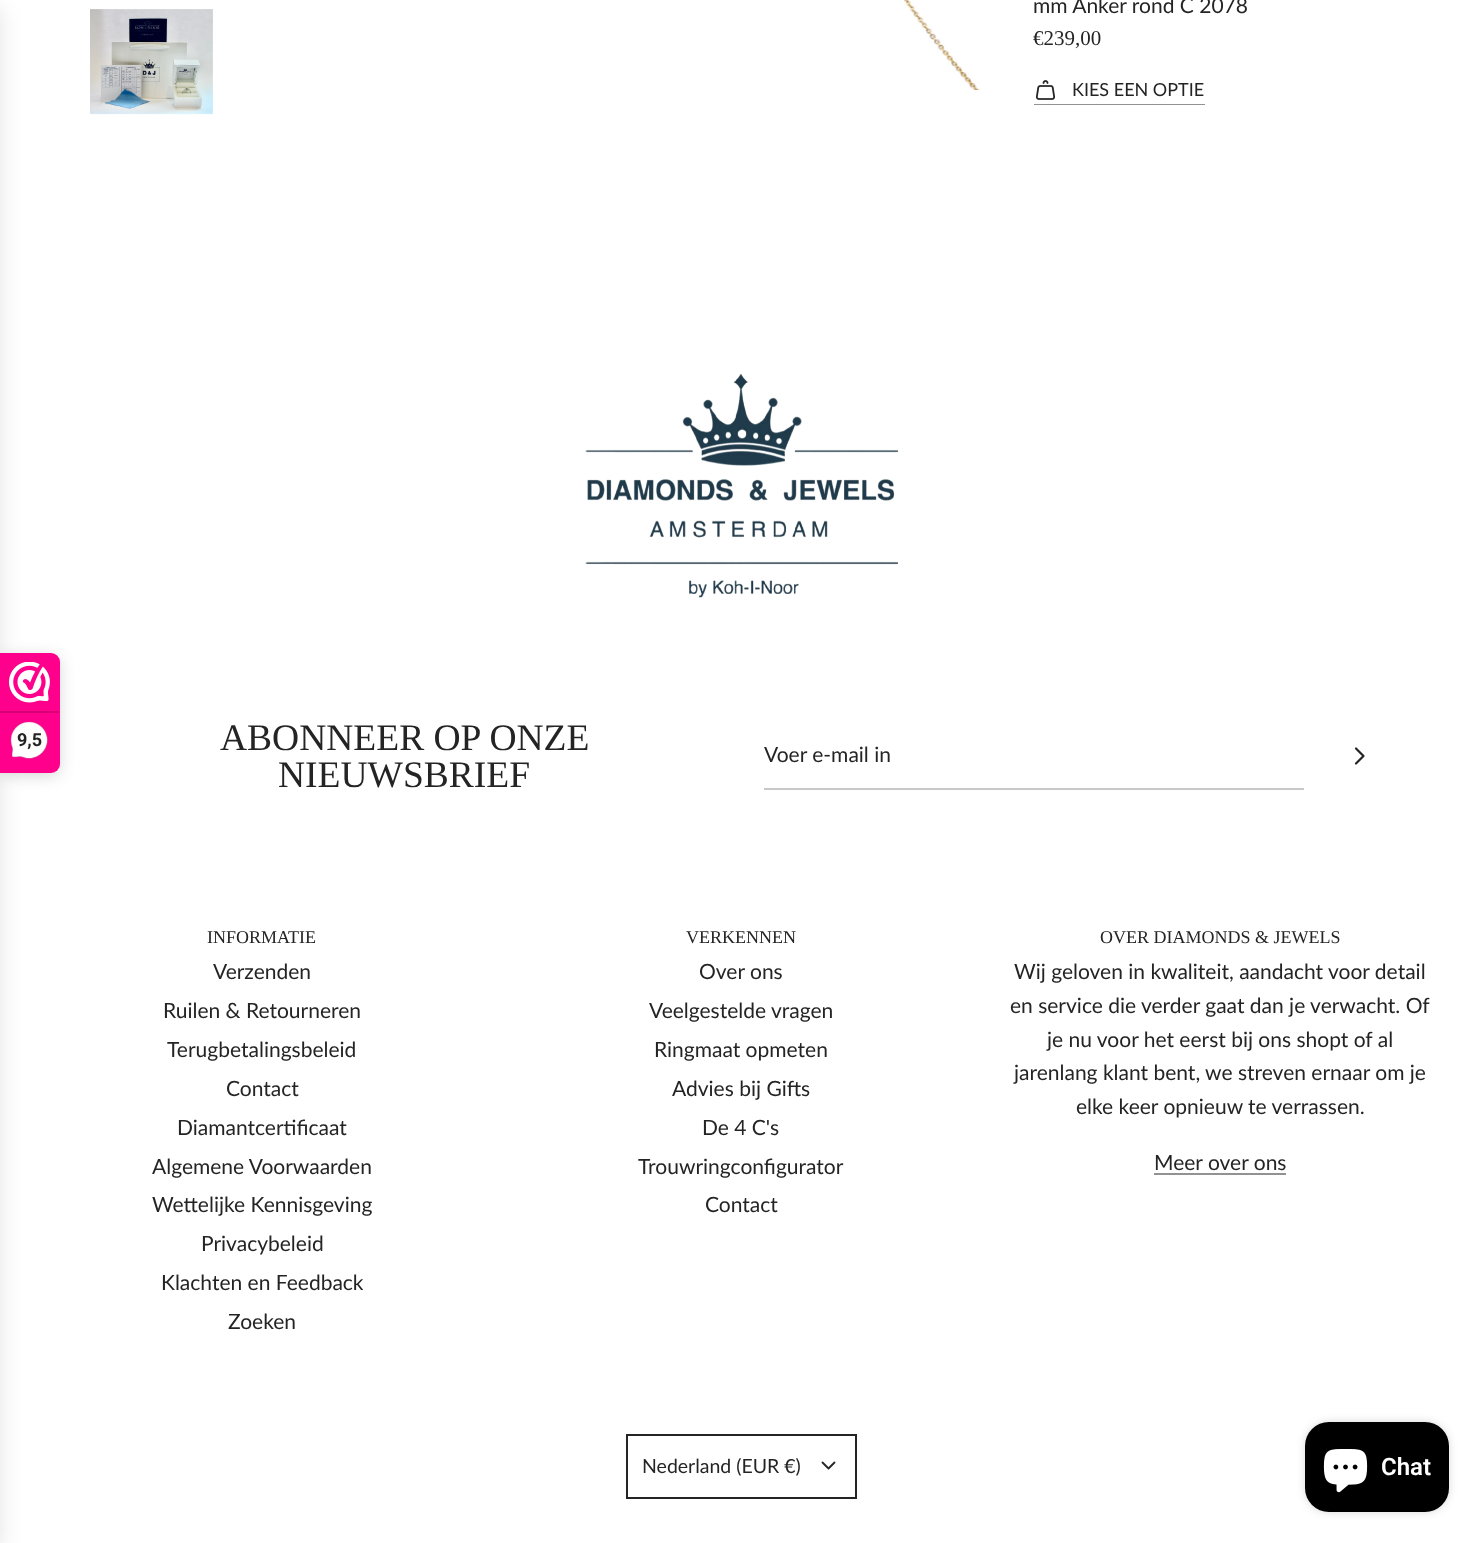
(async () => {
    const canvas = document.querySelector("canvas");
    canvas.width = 1481;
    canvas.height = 1543;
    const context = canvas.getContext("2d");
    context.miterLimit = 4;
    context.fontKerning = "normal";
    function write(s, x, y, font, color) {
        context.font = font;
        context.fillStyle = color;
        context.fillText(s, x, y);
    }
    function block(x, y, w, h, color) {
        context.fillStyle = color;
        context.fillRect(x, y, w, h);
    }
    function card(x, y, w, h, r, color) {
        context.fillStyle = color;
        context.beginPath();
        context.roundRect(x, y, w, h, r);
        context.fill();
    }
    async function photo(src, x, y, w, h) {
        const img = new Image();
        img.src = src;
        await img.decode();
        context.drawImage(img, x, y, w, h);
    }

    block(0, 0, 1481, 1543, "rgb(255, 255, 255)");
    context.fillStyle = "rgba(0, 0, 0, 0.1)";
    context.filter = "blur(11px)";
    context.beginPath();
    context.rect(-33, 8, 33, 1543);
    context.fill();
    context.filter = "none";
    await photo("media/1.png", 90, 9, 123, 106);
    await photo("media/2.png", 903, 0, 77, 90);
    write("mm Anker rond C 2078", 1033, 13, "21px Lato", "rgb(36, 36, 36)");
    write("€239,00", 1033, 45, "21px Liberation Serif", "rgb(36, 36, 36)");
    block(1034, 104, 171, 1, "rgb(146, 146, 146)");
    await photo("media/3.png", 1036, 80, 19, 20);
    write("KIES EEN OPTIE", 1072, 96, "18px Lato", "rgb(36, 36, 36)");
    context.fillStyle = "rgba(0, 0, 0, 0.15)";
    context.filter = "blur(7.5px)";
    context.beginPath();
    context.roundRect(0, 656, 60, 120, 9);
    context.fill();
    context.filter = "none";
    context.fillStyle = "rgb(254, 0, 140)";
    context.beginPath();
    context.roundRect(0, 653, 60, 120, [0, 9, 9, 0]);
    context.fill();
    await photo("media/4.png", 9, 662, 41, 41);
    block(0, 711, 59, 2, "rgb(216, 0, 119)");
    await photo("media/5.png", 10, 721, 38, 38);
    write("9,5", 17, 746, "bold 18px Roboto", "rgb(36, 36, 36)");
    await photo("media/6.png", 585, 374, 313, 224);
    write("ABONNEER OP ONZE", 220, 750, "37.5px Liberation Serif", "rgb(36, 36, 36)");
    write("NIEUWSBRIEF", 278, 787, "37.5px Liberation Serif", "rgb(36, 36, 36)");
    block(764, 788, 540, 2, "rgb(200, 200, 200)");
    write("Voer e-mail in", 764, 762, "21px Lato", "rgb(36, 36, 36)");
    context.beginPath();
    context.moveTo(1356, 748.5);
    context.lineTo(1363.5, 756);
    context.lineTo(1356, 763.5);
    context.strokeStyle = "rgb(36, 36, 36)";
    context.lineWidth = 2.2;
    context.lineCap = "round";
    context.lineJoin = "round";
    context.stroke();
    write("INFORMATIE", 207, 943, "18px Liberation Serif", "rgb(36, 36, 36)");
    write("Verzenden", 213, 979, "21px Lato", "rgb(36, 36, 36)");
    write("Ruilen & Retourneren", 163, 1018, "21px Lato", "rgb(36, 36, 36)");
    write("Terugbetalingsbeleid", 167, 1057, "21px Lato", "rgb(36, 36, 36)");
    write("Contact", 226, 1096, "21px Lato", "rgb(36, 36, 36)");
    write("Diamantcertificaat", 177, 1135, "21px Lato", "rgb(36, 36, 36)");
    write("Algemene Voorwaarden", 152, 1174, "21px Lato", "rgb(36, 36, 36)");
    write("Wettelijke Kennisgeving", 152, 1212, "21px Lato", "rgb(36, 36, 36)");
    write("Privacybeleid", 201, 1251, "21px Lato", "rgb(36, 36, 36)");
    write("Klachten en Feedback", 161, 1290, "21px Lato", "rgb(36, 36, 36)");
    write("Zoeken", 228, 1329, "21px Lato", "rgb(36, 36, 36)");
    write("VERKENNEN", 686, 943, "18px Liberation Serif", "rgb(36, 36, 36)");
    write("Over ons", 699, 979, "21px Lato", "rgb(36, 36, 36)");
    write("Veelgestelde vragen", 649, 1018, "21px Lato", "rgb(36, 36, 36)");
    write("Ringmaat opmeten", 654, 1057, "21px Lato", "rgb(36, 36, 36)");
    write("Advies bij Gifts", 672, 1096, "21px Lato", "rgb(36, 36, 36)");
    write("De 4 C's", 702, 1135, "21px Lato", "rgb(36, 36, 36)");
    write("Trouwringconfigurator", 638, 1174, "21px Lato", "rgb(36, 36, 36)");
    write("Contact", 705, 1212, "21px Lato", "rgb(36, 36, 36)");
    write("OVER DIAMONDS & JEWELS", 1100, 943, "18px Liberation Serif", "rgb(36, 36, 36)");
    write("Wij geloven in kwaliteit, aandacht voor detail", 1014, 979, "21px Lato", "rgb(36, 36, 36)");
    write("en service die verder gaat dan je verwacht. Of", 1010, 1013, "21px Lato", "rgb(36, 36, 36)");
    write("je nu voor het eerst bij ons shopt of al", 1047, 1047, "21px Lato", "rgb(36, 36, 36)");
    write("jarenlang klant bent, we streven ernaar om je", 1014, 1080, "21px Lato", "rgb(36, 36, 36)");
    write("elke keer opnieuw te verrassen.", 1076, 1114, "21px Lato", "rgb(36, 36, 36)");
    write("Meer over ons", 1154, 1170, "21px Lato", "rgb(36, 36, 36)");
    block(1154, 1173, 132, 2, "rgb(146, 146, 146)");
    context.lineWidth = 2;
    context.lineJoin = "miter";
    context.strokeRect(627, 1435, 229, 63);
    write("Nederland (EUR €)", 642, 1473, "19.5px Lato", "rgb(36, 36, 36)");
    context.beginPath();
    context.moveTo(822.5, 1462.5);
    context.lineTo(828.5, 1468.5);
    context.lineTo(834.5, 1462.5);
    context.lineWidth = 1.8;
    context.lineJoin = "round";
    context.stroke();
    context.fillStyle = "rgba(0, 0, 0, 0.15)";
    context.filter = "blur(4px)";
    context.beginPath();
    context.roundRect(1305, 1422, 144, 90, 24);
    context.fill();
    context.filter = "none";
    card(1305, 1422, 144, 90, 24, "rgb(0, 0, 0)");
    await photo("media/7.png", 1323, 1449, 45, 44);
    write("Chat", 1381, 1475, "600 24px Roboto", "rgb(255, 255, 255)");
})();
